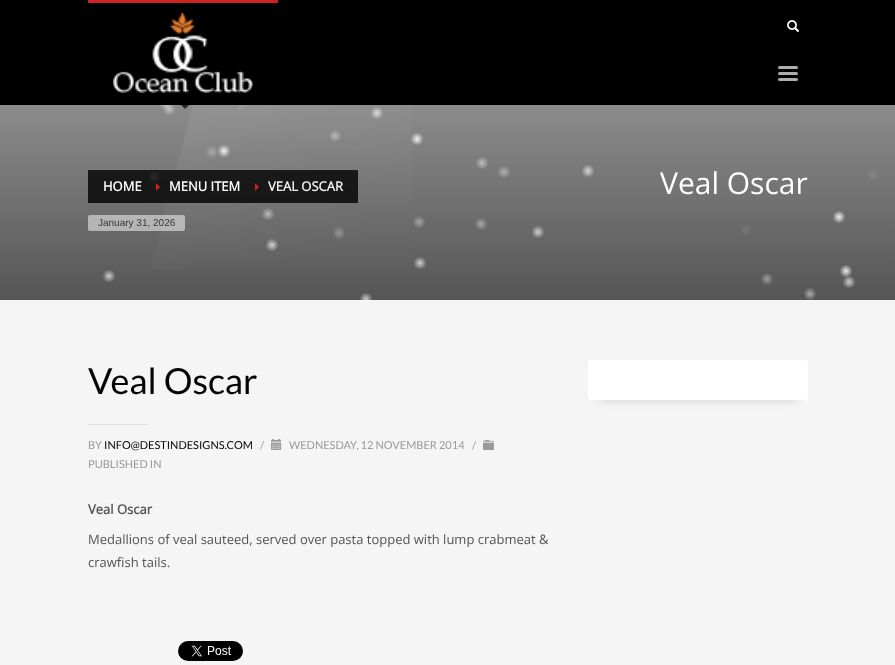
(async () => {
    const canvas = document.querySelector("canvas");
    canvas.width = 895;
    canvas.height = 665;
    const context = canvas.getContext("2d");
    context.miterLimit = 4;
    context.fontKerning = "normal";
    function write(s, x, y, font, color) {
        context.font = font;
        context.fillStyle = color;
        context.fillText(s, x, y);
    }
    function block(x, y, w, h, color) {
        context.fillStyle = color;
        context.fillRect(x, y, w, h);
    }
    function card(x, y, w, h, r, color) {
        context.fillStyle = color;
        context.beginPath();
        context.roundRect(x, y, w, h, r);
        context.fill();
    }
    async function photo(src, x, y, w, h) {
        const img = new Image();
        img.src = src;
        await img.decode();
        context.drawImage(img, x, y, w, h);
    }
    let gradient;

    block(0, 0, 895, 665, "rgb(245, 245, 245)");
    block(0, 0, 895, 105, "rgb(0, 0, 0)");
    block(88, 0, 190, 3, "rgb(205, 33, 34)");
    await photo("media/1.png", 113, 13, 140, 80);
    gradient = context.createLinearGradient(448, 0, 448, 300);
    gradient.addColorStop(0, "rgb(169, 169, 169)");
    gradient.addColorStop(1, "rgb(85, 85, 85)");
    context.fillStyle = gradient;
    context.fillRect(0, 105, 895, 195);
    await photo("media/3.png", 151, 105, 261, 164);
    context.fillStyle = "rgba(0, 0, 0, 0.7)";
    context.beginPath();
    context.moveTo(180, 104);
    context.lineTo(190, 104);
    context.lineTo(185, 109);
    context.closePath();
    context.fill();
    await photo("media/2.png", 787, 20, 12, 12);
    card(778, 66, 20, 3, 1.5, "rgb(173, 173, 173)");
    card(778, 72, 20, 3, 1.5, "rgb(173, 173, 173)");
    card(778, 78, 20, 3, 1.5, "rgb(173, 173, 173)");
    gradient = context.createLinearGradient(448, 0, 448, 300);
    gradient.addColorStop(0, "rgb(34, 34, 34)");
    gradient.addColorStop(1, "rgb(17, 17, 17)");
    context.fillStyle = gradient;
    context.fillRect(88, 170, 58, 33);
    gradient = context.createRadialGradient(169, 109, 0, 169, 109, 11);
    gradient.addColorStop(0, "rgba(255, 255, 255, 0.5)");
    gradient.addColorStop(0.6, "rgba(255, 255, 255, 0)");
    context.fillStyle = gradient;
    context.fillRect(163, 105, 12, 10);
    gradient = context.createRadialGradient(165, 103, 0, 165, 103, 11);
    gradient.addColorStop(0, "rgba(255, 255, 255, 0.5)");
    gradient.addColorStop(0.6, "rgba(255, 255, 255, 0)");
    context.fillStyle = gradient;
    context.fillRect(159, 105, 12, 4);
    gradient = context.createRadialGradient(242, 105, 0, 242, 105, 11);
    gradient.addColorStop(0, "rgba(255, 255, 255, 0.1)");
    gradient.addColorStop(0.6, "rgba(255, 255, 255, 0)");
    context.fillStyle = gradient;
    context.fillRect(237, 105, 10, 5);
    gradient = context.createRadialGradient(377, 113, 0, 377, 113, 11);
    gradient.addColorStop(0, "rgba(255, 255, 255, 0.7)");
    gradient.addColorStop(0.6, "rgba(255, 255, 255, 0)");
    context.fillStyle = gradient;
    context.fillRect(371, 107, 12, 12);
    gradient = context.createRadialGradient(335, 136, 0, 335, 136, 11);
    gradient.addColorStop(0, "rgba(255, 255, 255, 0.4)");
    gradient.addColorStop(0.6, "rgba(255, 255, 255, 0)");
    context.fillStyle = gradient;
    context.fillRect(329, 130, 12, 12);
    gradient = context.createRadialGradient(417, 139, 0, 417, 139, 11);
    gradient.addColorStop(0, "rgba(255, 255, 255, 0.9)");
    gradient.addColorStop(0.6, "rgba(255, 255, 255, 0)");
    context.fillStyle = gradient;
    context.fillRect(411, 133, 12, 12);
    gradient = context.createRadialGradient(212, 152, 0, 212, 152, 11);
    gradient.addColorStop(0, "rgba(255, 255, 255, 0.3)");
    gradient.addColorStop(0.6, "rgba(255, 255, 255, 0)");
    context.fillStyle = gradient;
    context.fillRect(206, 146, 12, 12);
    gradient = context.createRadialGradient(224, 151, 0, 224, 151, 11);
    gradient.addColorStop(0, "rgba(255, 255, 255, 0.9)");
    gradient.addColorStop(0.6, "rgba(255, 255, 255, 0)");
    context.fillStyle = gradient;
    context.fillRect(218, 145, 12, 12);
    gradient = context.createRadialGradient(482, 163, 0, 482, 163, 11);
    gradient.addColorStop(0, "rgba(255, 255, 255, 0.5)");
    gradient.addColorStop(0.6, "rgba(255, 255, 255, 0)");
    context.fillStyle = gradient;
    context.fillRect(476, 157, 12, 12);
    gradient = context.createRadialGradient(154, 177, 0, 154, 177, 11);
    gradient.addColorStop(0, "rgba(255, 255, 255, 0.7)");
    gradient.addColorStop(0.6, "rgba(255, 255, 255, 0)");
    context.fillStyle = gradient;
    context.fillRect(148, 171, 12, 12);
    gradient = context.createRadialGradient(504, 172, 0, 504, 172, 11);
    gradient.addColorStop(0, "rgba(255, 255, 255, 0.4)");
    gradient.addColorStop(0.6, "rgba(255, 255, 255, 0)");
    context.fillStyle = gradient;
    context.fillRect(498, 166, 12, 12);
    gradient = context.createRadialGradient(588, 171, 0, 588, 171, 11);
    gradient.addColorStop(0, "rgba(255, 255, 255, 0.7)");
    gradient.addColorStop(0.6, "rgba(255, 255, 255, 0)");
    context.fillStyle = gradient;
    context.fillRect(582, 165, 12, 12);
    gradient = context.createRadialGradient(873, 175, 0, 873, 175, 11);
    gradient.addColorStop(0, "rgba(255, 255, 255, 0.1)");
    gradient.addColorStop(0.6, "rgba(255, 255, 255, 0)");
    context.fillStyle = gradient;
    context.fillRect(868, 170, 10, 10);
    gradient = context.createRadialGradient(268, 214, 0, 268, 214, 11);
    gradient.addColorStop(0, "rgba(255, 255, 255, 0.5)");
    gradient.addColorStop(0.6, "rgba(255, 255, 255, 0)");
    context.fillStyle = gradient;
    context.fillRect(262, 208, 12, 12);
    gradient = context.createRadialGradient(339, 233, 0, 339, 233, 11);
    gradient.addColorStop(0, "rgba(255, 255, 255, 0.3)");
    gradient.addColorStop(0.6, "rgba(255, 255, 255, 0)");
    context.fillStyle = gradient;
    context.fillRect(333, 227, 12, 12);
    gradient = context.createRadialGradient(419, 222, 0, 419, 222, 11);
    gradient.addColorStop(0, "rgba(255, 255, 255, 0.4)");
    gradient.addColorStop(0.6, "rgba(255, 255, 255, 0)");
    context.fillStyle = gradient;
    context.fillRect(413, 216, 12, 12);
    gradient = context.createRadialGradient(481, 224, 0, 481, 224, 11);
    gradient.addColorStop(0, "rgba(255, 255, 255, 0.4)");
    gradient.addColorStop(0.6, "rgba(255, 255, 255, 0)");
    context.fillStyle = gradient;
    context.fillRect(475, 218, 12, 12);
    gradient = context.createRadialGradient(538, 232, 0, 538, 232, 11);
    gradient.addColorStop(0, "rgba(255, 255, 255, 0.7)");
    gradient.addColorStop(0.6, "rgba(255, 255, 255, 0)");
    context.fillStyle = gradient;
    context.fillRect(532, 226, 12, 12);
    gradient = context.createRadialGradient(746, 230, 0, 746, 230, 11);
    gradient.addColorStop(0, "rgba(255, 255, 255, 0.1)");
    gradient.addColorStop(0.6, "rgba(255, 255, 255, 0)");
    context.fillStyle = gradient;
    context.fillRect(741, 225, 10, 10);
    gradient = context.createRadialGradient(839, 217, 0, 839, 217, 11);
    gradient.addColorStop(0, "rgba(255, 255, 255, 0.9)");
    gradient.addColorStop(0.6, "rgba(255, 255, 255, 0)");
    context.fillStyle = gradient;
    context.fillRect(833, 211, 12, 12);
    gradient = context.createRadialGradient(272, 245, 0, 272, 245, 11);
    gradient.addColorStop(0, "rgba(255, 255, 255, 0.7)");
    gradient.addColorStop(0.6, "rgba(255, 255, 255, 0)");
    context.fillStyle = gradient;
    context.fillRect(266, 239, 12, 12);
    gradient = context.createRadialGradient(420, 263, 0, 420, 263, 11);
    gradient.addColorStop(0, "rgba(255, 255, 255, 0.7)");
    gradient.addColorStop(0.6, "rgba(255, 255, 255, 0)");
    context.fillStyle = gradient;
    context.fillRect(414, 257, 12, 12);
    gradient = context.createRadialGradient(109, 276, 0, 109, 276, 11);
    gradient.addColorStop(0, "rgba(255, 255, 255, 0.7)");
    gradient.addColorStop(0.6, "rgba(255, 255, 255, 0)");
    context.fillStyle = gradient;
    context.fillRect(103, 270, 12, 12);
    gradient = context.createRadialGradient(767, 279, 0, 767, 279, 11);
    gradient.addColorStop(0, "rgba(255, 255, 255, 0.4)");
    gradient.addColorStop(0.6, "rgba(255, 255, 255, 0)");
    context.fillStyle = gradient;
    context.fillRect(761, 273, 12, 12);
    gradient = context.createRadialGradient(849, 282, 0, 849, 282, 11);
    gradient.addColorStop(0, "rgba(255, 255, 255, 0.7)");
    gradient.addColorStop(0.6, "rgba(255, 255, 255, 0)");
    context.fillStyle = gradient;
    context.fillRect(843, 276, 12, 12);
    gradient = context.createRadialGradient(846, 271, 0, 846, 271, 11);
    gradient.addColorStop(0, "rgba(255, 255, 255, 0.9)");
    gradient.addColorStop(0.6, "rgba(255, 255, 255, 0)");
    context.fillStyle = gradient;
    context.fillRect(840, 265, 12, 12);
    gradient = context.createRadialGradient(366, 299, 0, 366, 299, 11);
    gradient.addColorStop(0, "rgba(255, 255, 255, 0.7)");
    gradient.addColorStop(0.6, "rgba(255, 255, 255, 0)");
    context.fillStyle = gradient;
    context.fillRect(360, 293, 12, 10);
    gradient = context.createRadialGradient(810, 294, 0, 810, 294, 11);
    gradient.addColorStop(0, "rgba(255, 255, 255, 0.5)");
    gradient.addColorStop(0.6, "rgba(255, 255, 255, 0)");
    context.fillStyle = gradient;
    context.fillRect(804, 288, 12, 12);
    write("HOME", 103, 191, "bold 13px Open Sans", "rgb(255, 255, 255)");
    block(146, 170, 99, 33, "rgba(0, 0, 0, 0.8)");
    context.fillStyle = "rgb(205, 33, 34)";
    context.beginPath();
    context.moveTo(156, 191);
    context.lineTo(156, 183);
    context.lineTo(160, 187);
    context.closePath();
    context.fill();
    write("MENU ITEM", 169, 191, "bold 13px Open Sans", "rgb(255, 255, 255)");
    block(245, 170, 113, 33, "rgba(0, 0, 0, 0.8)");
    context.fillStyle = "rgb(205, 33, 34)";
    context.beginPath();
    context.moveTo(255, 191);
    context.lineTo(255, 183);
    context.lineTo(259, 187);
    context.closePath();
    context.fill();
    write("VEAL OSCAR", 268, 191, "bold 13px Open Sans", "rgb(238, 238, 238)");
    card(88, 215, 97, 16, 2, "rgba(255, 255, 255, 0.5)");
    write("January 31, 2026", 98, 226, "10px Liberation Sans", "rgb(56, 56, 56)");
    write("Veal Oscar", 660, 194, "30px Open Sans", "rgb(255, 255, 255)");
    write("Veal Oscar", 88, 394, "36px Lato", "rgb(5, 5, 5)");
    block(88, 424, 60, 1, "rgb(221, 221, 221)");
    write("BY", 88, 449, "11px Lato", "rgb(154, 154, 154)");
    write("INFO@DESTINDESIGNS.COM", 104, 449, "11px Lato", "rgb(5, 5, 5)");
    write("/", 260, 449, "11px Lato", "rgb(154, 154, 154)");
    await photo("media/4.png", 271, 439, 11, 11);
    write("WEDNESDAY, 12 NOVEMBER 2014", 289, 449, "11px Lato", "rgb(154, 154, 154)");
    write("/", 472, 449, "11px Lato", "rgb(154, 154, 154)");
    await photo("media/5.png", 483, 439, 11, 11);
    write("PUBLISHED IN", 88, 468, "11px Lato", "rgb(154, 154, 154)");
    write("Veal Oscar", 88, 514, "bold 13px Open Sans", "rgb(83, 83, 83)");
    write("Medallions of veal sauteed, served over pasta topped with lump crabmeat &", 88, 544, "13px Open Sans", "rgb(83, 83, 83)");
    write("crawfish tails.", 88, 567, "13px Open Sans", "rgb(83, 83, 83)");
    await photo("media/6.png", 178, 641, 65, 20);
    context.fillStyle = "rgba(0, 0, 0, 0.15)";
    context.filter = "blur(5px)";
    context.beginPath();
    context.rect(598, 380, 200, 20);
    context.fill();
    context.filter = "none";
    card(588, 360, 220, 40, 3, "rgb(255, 255, 255)");
})();
